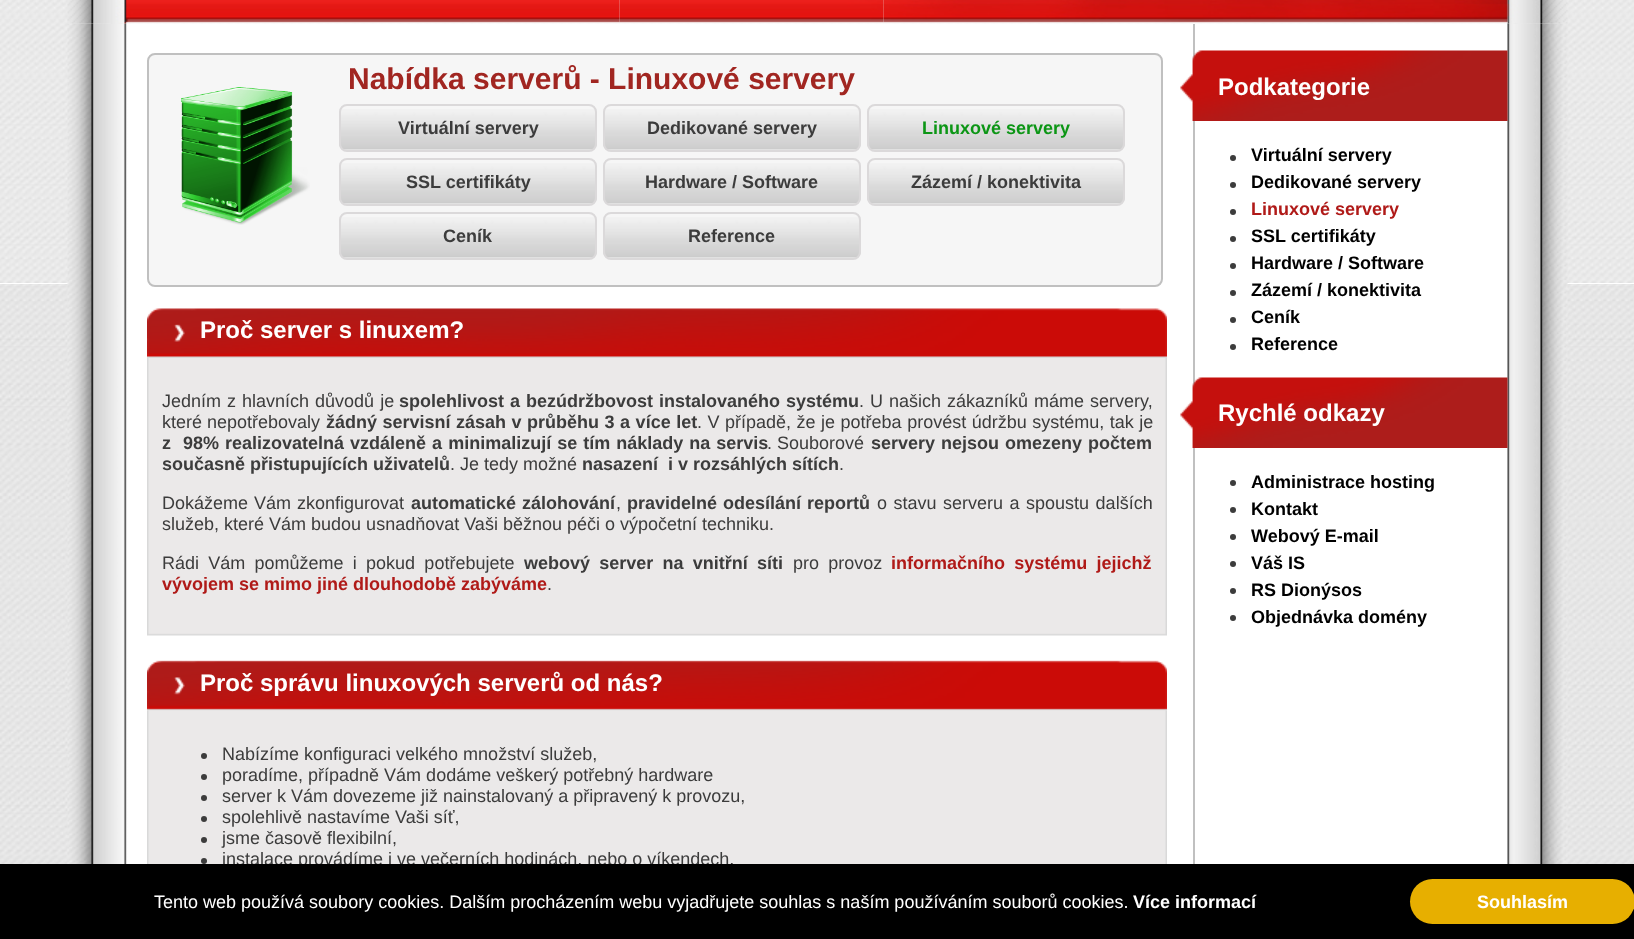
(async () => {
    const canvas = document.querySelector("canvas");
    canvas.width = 1634;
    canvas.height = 939;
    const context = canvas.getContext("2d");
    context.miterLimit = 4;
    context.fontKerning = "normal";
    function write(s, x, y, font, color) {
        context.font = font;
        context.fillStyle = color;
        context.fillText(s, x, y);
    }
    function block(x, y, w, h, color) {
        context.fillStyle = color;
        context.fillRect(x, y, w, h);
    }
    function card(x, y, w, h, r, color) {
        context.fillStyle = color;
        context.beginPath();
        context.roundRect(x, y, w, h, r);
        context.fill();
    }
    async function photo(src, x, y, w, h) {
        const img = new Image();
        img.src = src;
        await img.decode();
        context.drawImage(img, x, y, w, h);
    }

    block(0, 0, 1634, 939, "rgb(255, 255, 255)");
    await photo("media/1.png", 0, 284, 1634, 580);
    await photo("media/2.png", 0, 0, 1634, 283);
    await photo("media/8.png", 67, 23, 1501, 841);
    await photo("media/4.png", 619, 0, 265, 24);
    await photo("media/3.png", 67, 0, 553, 24);
    await photo("media/5.png", 883, 0, 8, 24);
    await photo("media/7.png", 1507, 0, 61, 24);
    await photo("media/6.png", 891, 0, 617, 24);
    block(1193, 24, 2, 840, "rgb(192, 192, 192)");
    context.fillStyle = "rgb(246, 246, 246)";
    context.beginPath();
    context.roundRect(148, 54, 1014, 232, 7);
    context.fill();
    context.strokeStyle = "rgb(192, 192, 192)";
    context.lineWidth = 2;
    context.stroke();
    await photo("media/9.png", 181, 87, 129, 138);
    write("Nabídka serverů - Linuxové servery", 348, 89, "bold 30px Liberation Sans", "rgb(161, 38, 33)");
    await photo("media/10.png", 339, 109, 258, 41);
    context.beginPath();
    context.roundRect(340, 105, 256, 46, 7);
    context.strokeStyle = "rgb(219, 217, 218)";
    context.stroke();
    write("Virtuální servery", 398, 134, "bold 18px Liberation Sans", "rgb(60, 60, 60)");
    await photo("media/10.png", 603, 109, 258, 41);
    context.beginPath();
    context.roundRect(604, 105, 256, 46, 7);
    context.stroke();
    write("Dedikované servery", 647, 134, "bold 18px Liberation Sans", "rgb(60, 60, 60)");
    await photo("media/11.png", 867, 109, 258, 41);
    context.beginPath();
    context.roundRect(868, 105, 256, 46, 7);
    context.stroke();
    write("Linuxové servery", 922, 134, "bold 18px Liberation Sans", "rgb(12, 150, 21)");
    await photo("media/10.png", 339, 163, 258, 41);
    context.beginPath();
    context.roundRect(340, 159, 256, 46, 7);
    context.stroke();
    write("SSL certifikáty", 406, 188, "bold 18px Liberation Sans", "rgb(60, 60, 60)");
    await photo("media/10.png", 603, 163, 258, 41);
    context.beginPath();
    context.roundRect(604, 159, 256, 46, 7);
    context.stroke();
    write("Hardware / Software", 645, 188, "bold 18px Liberation Sans", "rgb(60, 60, 60)");
    await photo("media/10.png", 867, 163, 258, 41);
    context.beginPath();
    context.roundRect(868, 159, 256, 46, 7);
    context.stroke();
    write("Zázemí / konektivita", 911, 188, "bold 18px Liberation Sans", "rgb(60, 60, 60)");
    await photo("media/10.png", 339, 217, 258, 41);
    context.beginPath();
    context.roundRect(340, 213, 256, 46, 7);
    context.stroke();
    write("Ceník", 443, 242, "bold 18px Liberation Sans", "rgb(60, 60, 60)");
    await photo("media/10.png", 603, 217, 258, 41);
    context.beginPath();
    context.roundRect(604, 213, 256, 46, 7);
    context.stroke();
    write("Reference", 688, 242, "bold 18px Liberation Sans", "rgb(60, 60, 60)");
    await photo("media/12.png", 147, 308, 1020, 50);
    write("Proč server s linuxem?", 200, 338, "bold 24px Liberation Sans", "rgb(255, 255, 255)");
    await photo("media/13.png", 147, 358, 1020, 270);
    context.wordSpacing = "1px";
    write("Jedním z hlavních důvodů je", 162, 407, "18px Liberation Sans", "rgb(60, 60, 60)");
    write("spolehlivost a bezúdržbovost instalovaného systému", 399, 407, "bold 18px Liberation Sans", "rgb(60, 60, 60)");
    write(". U našich zákazníků máme servery,", 859, 407, "18px Liberation Sans", "rgb(60, 60, 60)");
    context.wordSpacing = "0px";
    write("které nepotřebovaly", 162, 428, "18px Liberation Sans", "rgb(60, 60, 60)");
    context.wordSpacing = "0.5px";
    write("žádný servisní zásah v průběhu 3 a více let", 326, 428, "bold 18px Liberation Sans", "rgb(60, 60, 60)");
    write(". V případě, že je potřeba provést údržbu systému, tak je", 697, 428, "18px Liberation Sans", "rgb(60, 60, 60)");
    context.wordSpacing = "1px";
    write("z  98% realizovatelná vzdáleně a minimalizují se tím náklady na servis", 162, 449, "bold 18px Liberation Sans", "rgb(60, 60, 60)");
    context.wordSpacing = "0px";
    write(". Souborové", 767, 449, "18px Liberation Sans", "rgb(60, 60, 60)");
    context.wordSpacing = "1px";
    write("servery nejsou omezeny počtem", 871, 449, "bold 18px Liberation Sans", "rgb(60, 60, 60)");
    context.wordSpacing = "0px";
    write("současně přistupujících uživatelů", 162, 470, "bold 18px Liberation Sans", "rgb(60, 60, 60)");
    write(". Je tedy možné", 450, 470, "18px Liberation Sans", "rgb(60, 60, 60)");
    write("nasazení  i v rozsáhlých sítích", 582, 470, "bold 18px Liberation Sans", "rgb(60, 60, 60)");
    write(".", 839, 470, "18px Liberation Sans", "rgb(60, 60, 60)");
    context.wordSpacing = "1px";
    write("Dokážeme Vám zkonfigurovat", 162, 509, "18px Liberation Sans", "rgb(60, 60, 60)");
    write("automatické zálohování", 411, 509, "bold 18px Liberation Sans", "rgb(60, 60, 60)");
    context.wordSpacing = "0px";
    write(",", 616, 509, "18px Liberation Sans", "rgb(60, 60, 60)");
    context.wordSpacing = "1px";
    write("pravidelné odesílání reportů", 627, 509, "bold 18px Liberation Sans", "rgb(60, 60, 60)");
    context.wordSpacing = "1.5px";
    write("o stavu serveru a spoustu dalších", 877, 509, "18px Liberation Sans", "rgb(60, 60, 60)");
    context.wordSpacing = "0px";
    write("služeb, které Vám budou usnadňovat Vaši běžnou péči o výpočetní techniku.", 162, 530, "18px Liberation Sans", "rgb(60, 60, 60)");
    context.wordSpacing = "4.25px";
    write("Rádi Vám pomůžeme i pokud potřebujete", 162, 569, "18px Liberation Sans", "rgb(60, 60, 60)");
    write("webový server na vnitřní síti", 524, 569, "bold 18px Liberation Sans", "rgb(60, 60, 60)");
    write("pro provoz", 793, 569, "18px Liberation Sans", "rgb(60, 60, 60)");
    write("informačního systému jejichž", 891, 569, "bold 18px Liberation Sans", "rgb(176, 26, 24)");
    context.wordSpacing = "0px";
    write("vývojem se mimo jiné dlouhodobě zabýváme", 162, 590, "bold 18px Liberation Sans", "rgb(176, 26, 24)");
    write(".", 547, 590, "18px Liberation Sans", "rgb(60, 60, 60)");
    await photo("media/14.png", 147, 628, 1020, 8);
    await photo("media/15.png", 147, 660, 1020, 51);
    write("Proč správu linuxových serverů od nás?", 200, 691, "bold 24px Liberation Sans", "rgb(255, 255, 255)");
    await photo("media/16.png", 147, 710, 1020, 154);
    context.fillStyle = "rgb(60, 60, 60)";
    context.beginPath();
    context.arc(204, 756, 3, 0, Math.PI * 2);
    context.fill();
    write("Nabízíme konfiguraci velkého množství služeb,", 222, 760, "18px Liberation Sans", "rgb(60, 60, 60)");
    context.beginPath();
    context.arc(204, 777, 3, 0, Math.PI * 2);
    context.fill();
    write("poradíme, případně Vám dodáme veškerý potřebný hardware", 222, 781, "18px Liberation Sans", "rgb(60, 60, 60)");
    context.beginPath();
    context.arc(204, 798, 3, 0, Math.PI * 2);
    context.fill();
    write("server k Vám dovezeme již nainstalovaný a připravený k provozu,", 222, 802, "18px Liberation Sans", "rgb(60, 60, 60)");
    context.beginPath();
    context.arc(204, 819, 3, 0, Math.PI * 2);
    context.fill();
    write("spolehlivě nastavíme Vaši síť,", 222, 823, "18px Liberation Sans", "rgb(60, 60, 60)");
    context.beginPath();
    context.arc(204, 840, 3, 0, Math.PI * 2);
    context.fill();
    write("jsme časově flexibilní,", 222, 844, "18px Liberation Sans", "rgb(60, 60, 60)");
    context.beginPath();
    context.arc(204, 861, 3, 0, Math.PI * 2);
    context.fill();
    write("instalace provádíme i ve večerních hodinách, nebo o víkendech,", 222, 865, "18px Liberation Sans", "rgb(60, 60, 60)");
    await photo("media/17.png", 1180, 50, 328, 71);
    write("Podkategorie", 1218, 95, "bold 24px Liberation Sans", "rgb(255, 255, 255)");
    context.fillStyle = "rgb(60, 60, 60)";
    context.beginPath();
    context.arc(1233, 158, 3, 0, Math.PI * 2);
    context.fill();
    write("Virtuální servery", 1251, 161, "bold 18px Liberation Sans", "rgb(0, 0, 0)");
    context.fillStyle = "rgb(60, 60, 60)";
    context.beginPath();
    context.arc(1233, 185, 3, 0, Math.PI * 2);
    context.fill();
    write("Dedikované servery", 1251, 188, "bold 18px Liberation Sans", "rgb(0, 0, 0)");
    context.fillStyle = "rgb(60, 60, 60)";
    context.beginPath();
    context.arc(1233, 212, 3, 0, Math.PI * 2);
    context.fill();
    write("Linuxové servery", 1251, 215, "bold 18px Liberation Sans", "rgb(176, 26, 24)");
    context.fillStyle = "rgb(60, 60, 60)";
    context.beginPath();
    context.arc(1233, 239, 3, 0, Math.PI * 2);
    context.fill();
    write("SSL certifikáty", 1251, 242, "bold 18px Liberation Sans", "rgb(0, 0, 0)");
    context.fillStyle = "rgb(60, 60, 60)";
    context.beginPath();
    context.arc(1233, 266, 3, 0, Math.PI * 2);
    context.fill();
    write("Hardware / Software", 1251, 269, "bold 18px Liberation Sans", "rgb(0, 0, 0)");
    context.fillStyle = "rgb(60, 60, 60)";
    context.beginPath();
    context.arc(1233, 293, 3, 0, Math.PI * 2);
    context.fill();
    write("Zázemí / konektivita", 1251, 296, "bold 18px Liberation Sans", "rgb(0, 0, 0)");
    context.fillStyle = "rgb(60, 60, 60)";
    context.beginPath();
    context.arc(1233, 320, 3, 0, Math.PI * 2);
    context.fill();
    write("Ceník", 1251, 323, "bold 18px Liberation Sans", "rgb(0, 0, 0)");
    context.fillStyle = "rgb(60, 60, 60)";
    context.beginPath();
    context.arc(1233, 347, 3, 0, Math.PI * 2);
    context.fill();
    write("Reference", 1251, 350, "bold 18px Liberation Sans", "rgb(0, 0, 0)");
    await photo("media/17.png", 1180, 377, 328, 71);
    write("Rychlé odkazy", 1218, 421, "bold 24px Liberation Sans", "rgb(255, 255, 255)");
    context.fillStyle = "rgb(60, 60, 60)";
    context.beginPath();
    context.arc(1233, 483, 3, 0, Math.PI * 2);
    context.fill();
    write("Administrace hosting", 1251, 488, "bold 18px Liberation Sans", "rgb(0, 0, 0)");
    context.fillStyle = "rgb(60, 60, 60)";
    context.beginPath();
    context.arc(1233, 510, 3, 0, Math.PI * 2);
    context.fill();
    write("Kontakt", 1251, 515, "bold 18px Liberation Sans", "rgb(0, 0, 0)");
    context.fillStyle = "rgb(60, 60, 60)";
    context.beginPath();
    context.arc(1233, 537, 3, 0, Math.PI * 2);
    context.fill();
    write("Webový E-mail", 1251, 542, "bold 18px Liberation Sans", "rgb(0, 0, 0)");
    context.fillStyle = "rgb(60, 60, 60)";
    context.beginPath();
    context.arc(1233, 564, 3, 0, Math.PI * 2);
    context.fill();
    write("Váš IS", 1251, 569, "bold 18px Liberation Sans", "rgb(0, 0, 0)");
    context.fillStyle = "rgb(60, 60, 60)";
    context.beginPath();
    context.arc(1233, 591, 3, 0, Math.PI * 2);
    context.fill();
    write("RS Dionýsos", 1251, 596, "bold 18px Liberation Sans", "rgb(0, 0, 0)");
    context.fillStyle = "rgb(60, 60, 60)";
    context.beginPath();
    context.arc(1233, 618, 3, 0, Math.PI * 2);
    context.fill();
    write("Objednávka domény", 1251, 623, "bold 18px Liberation Sans", "rgb(0, 0, 0)");
    block(0, 864, 1634, 75, "rgb(0, 0, 0)");
    write("Tento web používá soubory cookies. Dalším procházením webu vyjadřujete souhlas s naším používáním souborů cookies.", 154, 908, "18px Liberation Sans", "rgb(255, 255, 255)");
    write("Více informací", 1133, 908, "bold 18px Liberation Sans", "rgb(255, 255, 255)");
    card(1410, 879, 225, 45, 22.5, "rgb(231, 175, 0)");
    write("Souhlasím", 1477, 908, "bold 18px Liberation Sans", "rgb(255, 255, 255)");
})();
